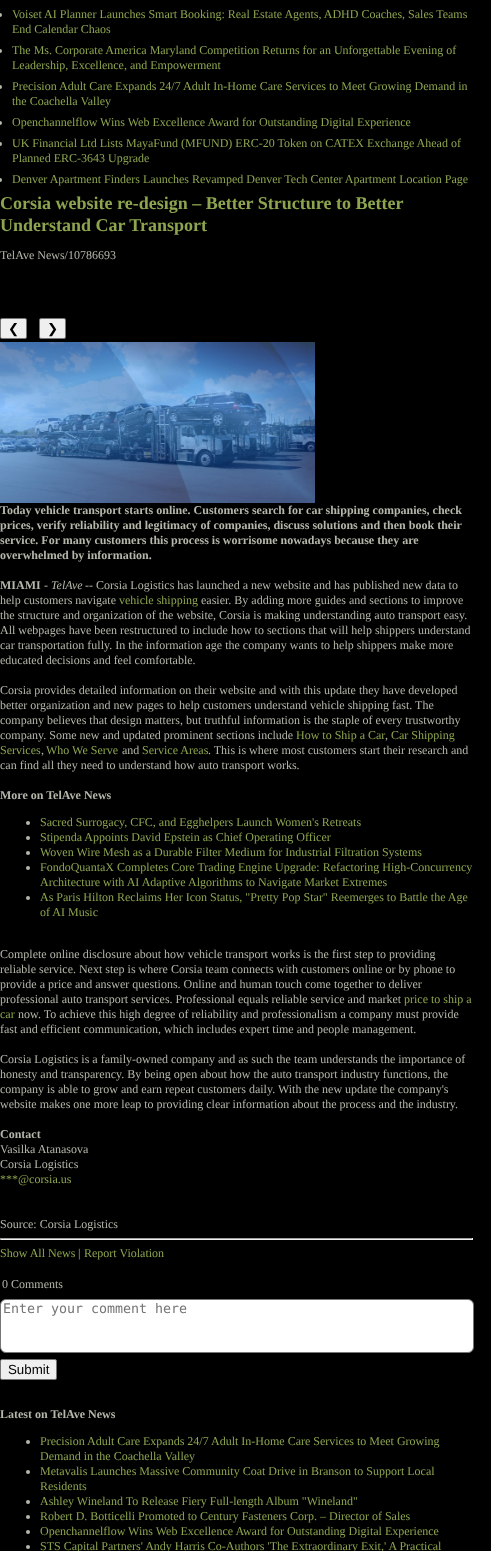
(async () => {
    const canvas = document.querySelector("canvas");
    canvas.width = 491;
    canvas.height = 1551;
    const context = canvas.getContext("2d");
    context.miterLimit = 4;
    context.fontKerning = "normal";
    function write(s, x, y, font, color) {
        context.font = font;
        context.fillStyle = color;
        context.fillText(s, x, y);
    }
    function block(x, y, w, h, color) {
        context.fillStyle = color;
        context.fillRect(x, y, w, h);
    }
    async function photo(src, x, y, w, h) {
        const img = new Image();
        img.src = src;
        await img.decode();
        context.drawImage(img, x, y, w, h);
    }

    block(0, 0, 491, 1551, "rgb(0, 0, 0)");
    context.fillStyle = "rgb(180, 184, 170)";
    context.beginPath();
    context.arc(0, 15, 2, 0, Math.PI * 2);
    context.fill();
    write("Voiset AI Planner Launches Smart Booking: Real Estate Agents, ADHD Coaches, Sales Teams", 12, 18, "12px Liberation Serif", "rgb(141, 165, 79)");
    write("End Calendar Chaos", 12, 33, "12px Liberation Serif", "rgb(141, 165, 79)");
    context.fillStyle = "rgb(180, 184, 170)";
    context.beginPath();
    context.arc(0, 51, 2, 0, Math.PI * 2);
    context.fill();
    write("The Ms. Corporate America Maryland Competition Returns for an Unforgettable Evening of", 12, 54, "12px Liberation Serif", "rgb(141, 165, 79)");
    write("Leadership, Excellence, and Empowerment", 12, 69, "12px Liberation Serif", "rgb(141, 165, 79)");
    context.fillStyle = "rgb(180, 184, 170)";
    context.beginPath();
    context.arc(0, 87, 2, 0, Math.PI * 2);
    context.fill();
    write("Precision Adult Care Expands 24/7 Adult In-Home Care Services to Meet Growing Demand in", 12, 90, "12px Liberation Serif", "rgb(141, 165, 79)");
    write("the Coachella Valley", 12, 105, "12px Liberation Serif", "rgb(141, 165, 79)");
    context.fillStyle = "rgb(180, 184, 170)";
    context.beginPath();
    context.arc(0, 123, 2, 0, Math.PI * 2);
    context.fill();
    write("Openchannelflow Wins Web Excellence Award for Outstanding Digital Experience", 12, 126, "12px Liberation Serif", "rgb(141, 165, 79)");
    context.fillStyle = "rgb(180, 184, 170)";
    context.beginPath();
    context.arc(0, 144, 2, 0, Math.PI * 2);
    context.fill();
    write("UK Financial Ltd Lists MayaFund (MFUND) ERC-20 Token on CATEX Exchange Ahead of", 12, 147, "12px Liberation Serif", "rgb(141, 165, 79)");
    write("Planned ERC-3643 Upgrade", 12, 162, "12px Liberation Serif", "rgb(141, 165, 79)");
    context.fillStyle = "rgb(180, 184, 170)";
    context.beginPath();
    context.arc(0, 180, 2, 0, Math.PI * 2);
    context.fill();
    write("Denver Apartment Finders Launches Revamped Denver Tech Center Apartment Location Page", 12, 183, "12px Liberation Serif", "rgb(141, 165, 79)");
    write("Corsia website re-design – Better Structure to Better", 0, 209, "bold 18px Liberation Serif", "rgb(141, 165, 79)");
    write("Understand Car Transport", 0, 231, "bold 18px Liberation Serif", "rgb(141, 165, 79)");
    write("TelAve News/10786693", 0, 259, "12px Liberation Serif", "rgb(180, 184, 170)");
    context.fillStyle = "rgb(239, 239, 239)";
    context.beginPath();
    context.roundRect(0.5, 318.5, 26, 20, 1.5);
    context.fill();
    context.strokeStyle = "rgb(118, 118, 118)";
    context.stroke();
    write("❮", 8, 333, "13.3px DejaVu Sans", "rgb(0, 0, 0)");
    context.fillStyle = "rgb(239, 239, 239)";
    context.beginPath();
    context.roundRect(39.5, 318.5, 26, 20, 1.5);
    context.fill();
    context.stroke();
    write("❯", 47, 333, "13.3px DejaVu Sans", "rgb(0, 0, 0)");
    await photo("media/1.png", 0, 342, 315, 161);
    write("Today vehicle transport starts online. Customers search for car shipping companies, check", 0, 514, "bold 12px Liberation Serif", "rgb(180, 184, 170)");
    write("prices, verify reliability and legitimacy of companies, discuss solutions and then book their", 0, 529, "bold 12px Liberation Serif", "rgb(180, 184, 170)");
    write("service. For many customers this process is worrisome nowadays because they are", 0, 544, "bold 12px Liberation Serif", "rgb(180, 184, 170)");
    write("overwhelmed by information.", 0, 559, "bold 12px Liberation Serif", "rgb(180, 184, 170)");
    write("MIAMI", 0, 589, "bold 12px Liberation Serif", "rgb(180, 184, 170)");
    write("-", 44, 589, "12px Liberation Serif", "rgb(180, 184, 170)");
    write("TelAve", 51, 589, "italic 12px Liberation Serif", "rgb(180, 184, 170)");
    write("-- Corsia Logistics has launched a new website and has published new data to", 85, 589, "12px Liberation Serif", "rgb(180, 184, 170)");
    write("help customers navigate", 0, 604, "12px Liberation Serif", "rgb(180, 184, 170)");
    write("vehicle shipping", 119, 604, "12px Liberation Serif", "rgb(141, 165, 79)");
    write("easier. By adding more guides and sections to improve", 201, 604, "12px Liberation Serif", "rgb(180, 184, 170)");
    write("the structure and organization of the website, Corsia is making understanding auto transport easy.", 0, 619, "12px Liberation Serif", "rgb(180, 184, 170)");
    write("All webpages have been restructured to include how to sections that will help shippers understand", 0, 634, "12px Liberation Serif", "rgb(180, 184, 170)");
    write("car transportation fully. In the information age the company wants to help shippers make more", 0, 649, "12px Liberation Serif", "rgb(180, 184, 170)");
    write("educated decisions and feel comfortable.", 0, 664, "12px Liberation Serif", "rgb(180, 184, 170)");
    write("Corsia provides detailed information on their website and with this update they have developed", 0, 694, "12px Liberation Serif", "rgb(180, 184, 170)");
    write("better organization and new pages to help customers understand vehicle shipping fast. The", 0, 709, "12px Liberation Serif", "rgb(180, 184, 170)");
    write("company believes that design matters, but truthful information is the staple of every trustworthy", 0, 724, "12px Liberation Serif", "rgb(180, 184, 170)");
    write("company. Some new and updated prominent sections include", 0, 739, "12px Liberation Serif", "rgb(180, 184, 170)");
    write("How to Ship a Car", 296, 739, "12px Liberation Serif", "rgb(141, 165, 79)");
    write(",", 385, 739, "12px Liberation Serif", "rgb(180, 184, 170)");
    write("Car Shipping", 391, 739, "12px Liberation Serif", "rgb(141, 165, 79)");
    write("Services", 0, 754, "12px Liberation Serif", "rgb(141, 165, 79)");
    write(",", 41, 754, "12px Liberation Serif", "rgb(180, 184, 170)");
    write("Who We Serve", 46, 754, "12px Liberation Serif", "rgb(141, 165, 79)");
    write("and", 122, 754, "12px Liberation Serif", "rgb(180, 184, 170)");
    write("Service Areas", 142, 754, "12px Liberation Serif", "rgb(141, 165, 79)");
    write(". This is where most customers start their research and", 208, 754, "12px Liberation Serif", "rgb(180, 184, 170)");
    write("can find all they need to understand how auto transport works.", 0, 769, "12px Liberation Serif", "rgb(180, 184, 170)");
    write("More on TelAve News", 0, 799, "bold 12px Liberation Serif", "rgb(180, 184, 170)");
    context.beginPath();
    context.arc(28, 823, 2, 0, Math.PI * 2);
    context.fill();
    write("Sacred Surrogacy, CFC, and Egghelpers Launch Women's Retreats", 40, 826, "12px Liberation Serif", "rgb(141, 165, 79)");
    context.fillStyle = "rgb(180, 184, 170)";
    context.beginPath();
    context.arc(28, 838, 2, 0, Math.PI * 2);
    context.fill();
    write("Stipenda Appoints David Epstein as Chief Operating Officer", 40, 841, "12px Liberation Serif", "rgb(141, 165, 79)");
    context.fillStyle = "rgb(180, 184, 170)";
    context.beginPath();
    context.arc(28, 853, 2, 0, Math.PI * 2);
    context.fill();
    write("Woven Wire Mesh as a Durable Filter Medium for Industrial Filtration Systems", 40, 856, "12px Liberation Serif", "rgb(141, 165, 79)");
    context.fillStyle = "rgb(180, 184, 170)";
    context.beginPath();
    context.arc(28, 868, 2, 0, Math.PI * 2);
    context.fill();
    write("FondoQuantaX Completes Core Trading Engine Upgrade: Refactoring High-Concurrency", 40, 871, "12px Liberation Serif", "rgb(141, 165, 79)");
    write("Architecture with AI Adaptive Algorithms to Navigate Market Extremes", 40, 886, "12px Liberation Serif", "rgb(141, 165, 79)");
    context.fillStyle = "rgb(180, 184, 170)";
    context.beginPath();
    context.arc(28, 898, 2, 0, Math.PI * 2);
    context.fill();
    write("As Paris Hilton Reclaims Her Icon Status, \"Pretty Pop Star\" Reemerges to Battle the Age", 40, 901, "12px Liberation Serif", "rgb(141, 165, 79)");
    write("of AI Music", 40, 916, "12px Liberation Serif", "rgb(141, 165, 79)");
    write("Complete online disclosure about how vehicle transport works is the first step to providing", 0, 958, "12px Liberation Serif", "rgb(180, 184, 170)");
    write("reliable service. Next step is where Corsia team connects with customers online or by phone to", 0, 973, "12px Liberation Serif", "rgb(180, 184, 170)");
    write("provide a price and answer questions. Online and human touch come together to deliver", 0, 988, "12px Liberation Serif", "rgb(180, 184, 170)");
    write("professional auto transport services. Professional equals reliable service and market", 0, 1003, "12px Liberation Serif", "rgb(180, 184, 170)");
    write("price to ship a", 404, 1003, "12px Liberation Serif", "rgb(141, 165, 79)");
    write("car", 0, 1018, "12px Liberation Serif", "rgb(141, 165, 79)");
    write("now. To achieve this high degree of reliability and professionalism a company must provide", 18, 1018, "12px Liberation Serif", "rgb(180, 184, 170)");
    write("fast and efficient communication, which includes expert time and people management.", 0, 1033, "12px Liberation Serif", "rgb(180, 184, 170)");
    write("Corsia Logistics is a family-owned company and as such the team understands the importance of", 0, 1063, "12px Liberation Serif", "rgb(180, 184, 170)");
    write("honesty and transparency. By being open about how the auto transport industry functions, the", 0, 1078, "12px Liberation Serif", "rgb(180, 184, 170)");
    write("company is able to grow and earn repeat customers daily. With the new update the company's", 0, 1093, "12px Liberation Serif", "rgb(180, 184, 170)");
    write("website makes one more leap to providing clear information about the process and the industry.", 0, 1108, "12px Liberation Serif", "rgb(180, 184, 170)");
    write("Contact", 0, 1138, "bold 12px Liberation Serif", "rgb(180, 184, 170)");
    write("Vasilka Atanasova", 0, 1153, "12px Liberation Serif", "rgb(180, 184, 170)");
    write("Corsia Logistics", 0, 1168, "12px Liberation Serif", "rgb(180, 184, 170)");
    write("***@corsia.us", 0, 1183, "12px Liberation Serif", "rgb(141, 165, 79)");
    write("Source: Corsia Logistics", 0, 1228, "12px Liberation Serif", "rgb(180, 184, 170)");
    block(0, 1238, 473, 1, "rgb(159, 159, 159)");
    block(472, 1238, 1, 2, "rgb(238, 238, 238)");
    block(0, 1239, 473, 1, "rgb(238, 238, 238)");
    block(0, 1238, 1, 2, "rgb(159, 159, 159)");
    write("Show All News", 0, 1257, "12px Liberation Serif", "rgb(141, 165, 79)");
    write("|", 78, 1257, "12px Liberation Serif", "rgb(180, 184, 170)");
    write("Report Violation", 84, 1257, "12px Liberation Serif", "rgb(141, 165, 79)");
    write("0 Comments", 2, 1288, "12px Liberation Serif", "rgb(180, 184, 170)");
    context.fillStyle = "rgb(255, 255, 255)";
    context.beginPath();
    context.roundRect(0.5, 1299.5, 473, 53, 5.5);
    context.fill();
    context.stroke();
    write("Enter your comment here", 3, 1313, "13.3px DejaVu Sans Mono", "rgb(117, 117, 117)");
    context.fillStyle = "rgb(239, 239, 239)";
    context.beginPath();
    context.roundRect(0.5, 1359.5, 56, 20, 1.5);
    context.fill();
    context.stroke();
    write("Submit", 8, 1374, "13.3px Liberation Sans", "rgb(0, 0, 0)");
    write("Latest on TelAve News", 0, 1418, "bold 12px Liberation Serif", "rgb(180, 184, 170)");
    context.beginPath();
    context.arc(28, 1442, 2, 0, Math.PI * 2);
    context.fill();
    write("Precision Adult Care Expands 24/7 Adult In-Home Care Services to Meet Growing", 40, 1445, "12px Liberation Serif", "rgb(141, 165, 79)");
    write("Demand in the Coachella Valley", 40, 1460, "12px Liberation Serif", "rgb(141, 165, 79)");
    context.fillStyle = "rgb(180, 184, 170)";
    context.beginPath();
    context.arc(28, 1472, 2, 0, Math.PI * 2);
    context.fill();
    write("Metavalis Launches Massive Community Coat Drive in Branson to Support Local", 40, 1475, "12px Liberation Serif", "rgb(141, 165, 79)");
    write("Residents", 40, 1490, "12px Liberation Serif", "rgb(141, 165, 79)");
    context.fillStyle = "rgb(180, 184, 170)";
    context.beginPath();
    context.arc(28, 1502, 2, 0, Math.PI * 2);
    context.fill();
    write("Ashley Wineland To Release Fiery Full-length Album \"Wineland\"", 40, 1505, "12px Liberation Serif", "rgb(141, 165, 79)");
    context.fillStyle = "rgb(180, 184, 170)";
    context.beginPath();
    context.arc(28, 1517, 2, 0, Math.PI * 2);
    context.fill();
    write("Robert D. Botticelli Promoted to Century Fasteners Corp. – Director of Sales", 40, 1520, "12px Liberation Serif", "rgb(141, 165, 79)");
    context.fillStyle = "rgb(180, 184, 170)";
    context.beginPath();
    context.arc(28, 1532, 2, 0, Math.PI * 2);
    context.fill();
    write("Openchannelflow Wins Web Excellence Award for Outstanding Digital Experience", 40, 1535, "12px Liberation Serif", "rgb(141, 165, 79)");
    context.fillStyle = "rgb(180, 184, 170)";
    context.beginPath();
    context.arc(28, 1547, 2, 0, Math.PI * 2);
    context.fill();
    write("STS Capital Partners' Andy Harris Co-Authors 'The Extraordinary Exit,' A Practical", 40, 1550, "12px Liberation Serif", "rgb(141, 165, 79)");
})();
